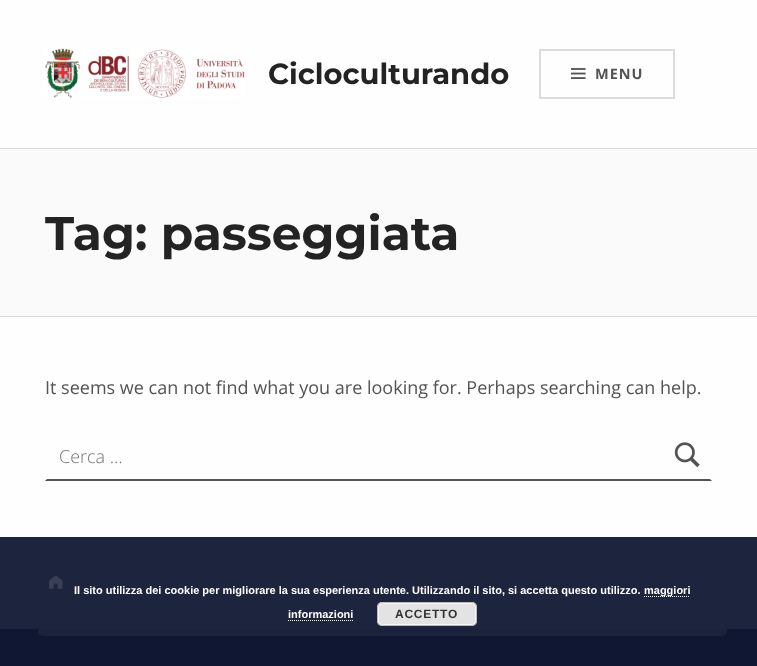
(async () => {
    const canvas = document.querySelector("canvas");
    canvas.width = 757;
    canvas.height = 666;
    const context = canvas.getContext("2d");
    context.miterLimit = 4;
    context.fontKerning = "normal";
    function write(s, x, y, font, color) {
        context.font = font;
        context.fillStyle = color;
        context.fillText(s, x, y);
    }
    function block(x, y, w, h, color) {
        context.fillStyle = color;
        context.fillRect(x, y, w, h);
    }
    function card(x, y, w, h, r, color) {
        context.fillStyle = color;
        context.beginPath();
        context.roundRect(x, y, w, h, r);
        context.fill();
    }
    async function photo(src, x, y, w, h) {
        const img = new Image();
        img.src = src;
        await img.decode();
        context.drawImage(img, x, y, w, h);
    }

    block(0, 0, 757, 666, "rgb(254, 254, 255)");
    block(0, 148, 757, 1, "rgb(220, 220, 221)");
    await photo("media/1.png", 45, 48, 200, 50);
    write("Cicloculturando", 268, 84, "bold 29px Montserrat", "rgb(35, 35, 36)");
    context.strokeStyle = "rgb(220, 220, 221)";
    context.lineWidth = 2;
    context.strokeRect(540, 50, 134, 48);
    await photo("media/2.png", 571, 68, 15, 11);
    context.letterSpacing = "1px";
    write("MENU", 595, 79, "bold 14.5px Open Sans", "rgb(83, 83, 84)");
    block(0, 149, 757, 167, "rgb(250, 250, 251)");
    block(0, 316, 757, 1, "rgb(217, 217, 218)");
    context.letterSpacing = "0px";
    write("Tag: passeggiata", 45, 250, "bold 47.1px Montserrat", "rgb(35, 35, 36)");
    write("It seems we can not find what you are looking for. Perhaps searching can help.", 45, 394, "18px Open Sans", "rgb(83, 83, 84)");
    context.beginPath();
    context.moveTo(712, 481);
    context.lineTo(45, 481);
    context.lineTo(47, 479);
    context.lineTo(710, 479);
    context.closePath();
    context.fill();
    write("Cerca …", 59, 463, "300 18px Open Sans", "rgb(117, 117, 118)");
    await photo("media/3.png", 674, 442, 26, 26);
    block(0, 629, 757, 37, "rgb(15, 23, 50)");
    block(0, 537, 757, 92, "rgb(29, 36, 61)");
    await photo("media/4.png", 49, 575, 14, 14);
    card(38, 574, 689, 62, 5, "rgba(29, 36, 61, 0.85)");
    write("Il sito utilizza dei cookie per migliorare la sua esperienza utente. Utilizzando il sito, si accetta questo utilizzo.", 74, 594, "bold 11px Liberation Sans", "rgb(255, 255, 255)");
    context.beginPath();
    context.moveTo(644, 596.5);
    context.lineTo(690, 596.5);
    context.strokeStyle = "rgb(255, 255, 255)";
    context.lineWidth = 1;
    context.setLineDash([1, 1]);
    context.stroke();
    write("maggiori", 644, 594, "bold 11px Liberation Sans", "rgb(255, 255, 255)");
    write("informazioni", 288, 618, "bold 11px Liberation Sans", "rgb(255, 255, 255)");
    context.beginPath();
    context.moveTo(288, 620.5);
    context.lineTo(354, 620.5);
    context.stroke();
    card(377, 602, 100, 24, 5, "rgb(227, 227, 227)");
    context.beginPath();
    context.roundRect(378.5, 603.5, 97, 21, 3.5);
    context.strokeStyle = "rgb(246, 246, 246)";
    context.setLineDash([]);
    context.stroke();
    context.beginPath();
    context.roundRect(377.5, 602.5, 99, 23, 4.5);
    context.strokeStyle = "rgb(187, 187, 187)";
    context.stroke();
    context.letterSpacing = "0.75px";
    write("ACCETTO", 395, 618, "bold 12px Liberation Sans", "rgb(51, 51, 51)");
})();
